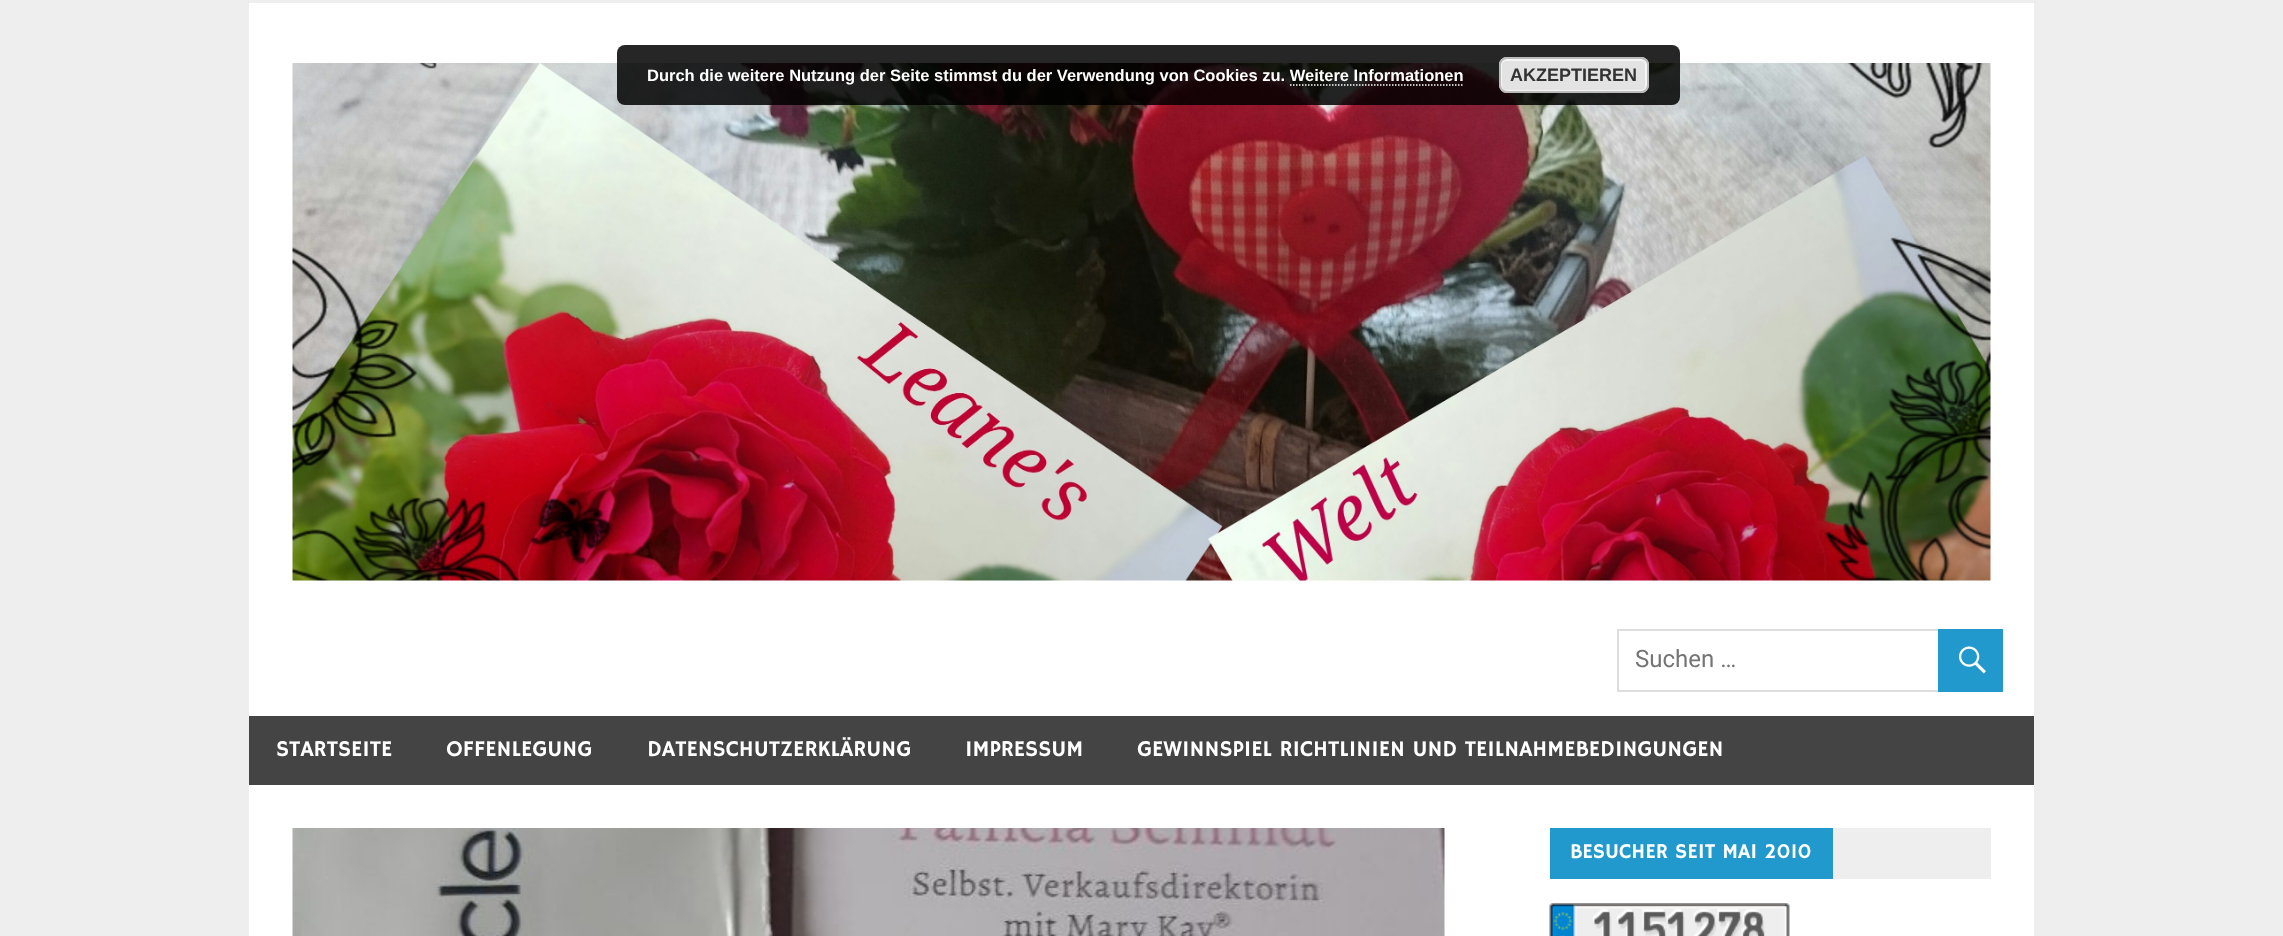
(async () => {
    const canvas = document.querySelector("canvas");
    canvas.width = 2283;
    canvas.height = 936;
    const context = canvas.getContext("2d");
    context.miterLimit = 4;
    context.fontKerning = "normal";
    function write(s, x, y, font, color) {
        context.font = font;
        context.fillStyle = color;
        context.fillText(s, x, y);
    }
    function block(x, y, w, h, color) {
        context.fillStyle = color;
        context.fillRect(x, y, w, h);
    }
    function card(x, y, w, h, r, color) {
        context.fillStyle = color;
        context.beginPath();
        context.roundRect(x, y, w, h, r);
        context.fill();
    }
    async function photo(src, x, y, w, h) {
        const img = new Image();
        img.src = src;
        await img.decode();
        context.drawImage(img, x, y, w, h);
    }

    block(0, 0, 2283, 936, "rgb(238, 238, 238)");
    block(249, 3, 1785, 933, "rgb(255, 255, 255)");
    await photo("media/1.png", 292, 63, 1699, 518);
    card(617, 45, 1063, 60, 8, "rgba(0, 0, 0, 0.85)");
    write("Durch die weitere Nutzung der Seite stimmst du der Verwendung von Cookies zu. Weitere Informationen", 647, 81, "bold 16.5px Liberation Sans", "rgb(255, 255, 255)");
    card(1499, 57, 150, 36, 8, "rgb(227, 227, 227)");
    context.beginPath();
    context.roundRect(1501, 60, 145, 31, 5);
    context.strokeStyle = "rgb(246, 246, 246)";
    context.lineWidth = 2;
    context.stroke();
    context.beginPath();
    context.roundRect(1500, 58, 148, 34, 7);
    context.strokeStyle = "rgb(187, 187, 187)";
    context.stroke();
    write("AKZEPTIEREN", 1510, 81, "bold 18px Liberation Sans", "rgb(51, 51, 51)");
    context.beginPath();
    context.moveTo(1290, 85);
    context.lineTo(1464, 85);
    context.strokeStyle = "rgb(255, 255, 255)";
    context.lineWidth = 1.5;
    context.setLineDash([1.5, 1.5]);
    context.stroke();
    context.strokeStyle = "rgb(221, 221, 221)";
    context.lineWidth = 2;
    context.setLineDash([]);
    context.strokeRect(1618, 630, 384, 61);
    write("Suchen …", 1635, 667, "24px Roboto", "rgb(117, 117, 117)");
    block(1938, 629, 65, 63, "rgb(34, 153, 204)");
    await photo("media/2.png", 1959, 646, 27, 28);
    block(249, 716, 1785, 69, "rgb(68, 68, 68)");
    write("STARTSEITE", 276, 756, "22.5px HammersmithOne", "rgb(255, 255, 255)");
    write("OFFENLEGUNG", 446, 756, "22.5px HammersmithOne", "rgb(255, 255, 255)");
    write("DATENSCHUTZERKLÄRUNG", 647, 756, "22.5px HammersmithOne", "rgb(255, 255, 255)");
    write("IMPRESSUM", 965, 756, "22.5px HammersmithOne", "rgb(255, 255, 255)");
    write("GEWINNSPIEL RICHTLINIEN UND TEILNAHMEBEDINGUNGEN", 1137, 756, "22.5px HammersmithOne", "rgb(255, 255, 255)");
    await photo("media/3.png", 292, 828, 1153, 108);
    block(1833, 828, 158, 51, "rgb(238, 238, 238)");
    block(1550, 828, 283, 51, "rgb(34, 153, 204)");
    write("BESUCHER SEIT MAI 2010", 1570, 858, "21px HammersmithOne", "rgb(255, 255, 255)");
    await photo("media/4.png", 1549, 903, 241, 33);
})();
